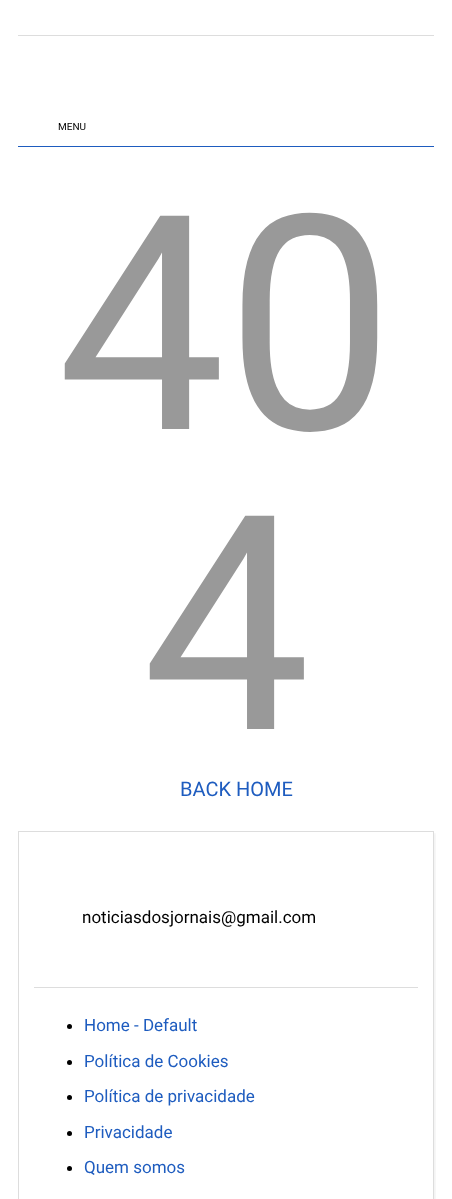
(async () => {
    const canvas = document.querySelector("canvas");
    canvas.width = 452;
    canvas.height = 1199;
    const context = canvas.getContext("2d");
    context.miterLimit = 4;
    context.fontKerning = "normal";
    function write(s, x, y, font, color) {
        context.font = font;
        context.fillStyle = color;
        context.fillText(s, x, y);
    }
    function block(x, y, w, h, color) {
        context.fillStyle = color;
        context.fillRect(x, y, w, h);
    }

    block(0, 0, 452, 1199, "rgb(255, 255, 255)");
    block(18, 35, 416, 1, "rgb(221, 221, 221)");
    write("MENU", 58, 130, "10px Roboto", "rgb(0, 0, 0)");
    block(18, 146, 416, 1, "rgb(30, 92, 191)");
    write("40", 57, 429, "300px Roboto", "rgb(153, 153, 153)");
    write("4", 142, 729, "300px Roboto", "rgb(153, 153, 153)");
    write("BACK HOME", 180, 796, "20px Roboto", "rgb(30, 92, 191)");
    context.save();
    context.beginPath();
    context.rect(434, 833, 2, 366);
    context.clip();
    context.fillStyle = "rgba(0, 0, 0, 0.05)";
    context.filter = "blur(1.5px)";
    context.beginPath();
    context.rect(20, 833, 416, 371);
    context.fill();
    context.filter = "none";
    context.restore();
    context.strokeStyle = "rgb(221, 221, 221)";
    context.strokeRect(18.5, 831.5, 415, 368);
    write("noticiasdosjornais@gmail.com", 82, 923, "17px Roboto", "rgb(0, 0, 0)");
    block(34, 987, 384, 1, "rgb(221, 221, 221)");
    context.fillStyle = "rgb(0, 0, 0)";
    context.beginPath();
    context.arc(69.5, 1026.5, 2.5, 0, Math.PI * 2);
    context.fill();
    write("Home - Default", 84, 1031, "17px Roboto", "rgb(30, 92, 191)");
    context.fillStyle = "rgb(0, 0, 0)";
    context.beginPath();
    context.arc(69.5, 1062.5, 2.5, 0, Math.PI * 2);
    context.fill();
    write("Política de Cookies", 84, 1067, "17px Roboto", "rgb(30, 92, 191)");
    context.fillStyle = "rgb(0, 0, 0)";
    context.beginPath();
    context.arc(69.5, 1097.5, 2.5, 0, Math.PI * 2);
    context.fill();
    write("Política de privacidade", 84, 1102, "17px Roboto", "rgb(30, 92, 191)");
    context.fillStyle = "rgb(0, 0, 0)";
    context.beginPath();
    context.arc(69.5, 1133.5, 2.5, 0, Math.PI * 2);
    context.fill();
    write("Privacidade", 84, 1138, "17px Roboto", "rgb(30, 92, 191)");
    context.fillStyle = "rgb(0, 0, 0)";
    context.beginPath();
    context.arc(69.5, 1168.5, 2.5, 0, Math.PI * 2);
    context.fill();
    write("Quem somos", 84, 1173, "17px Roboto", "rgb(30, 92, 191)");
})();
